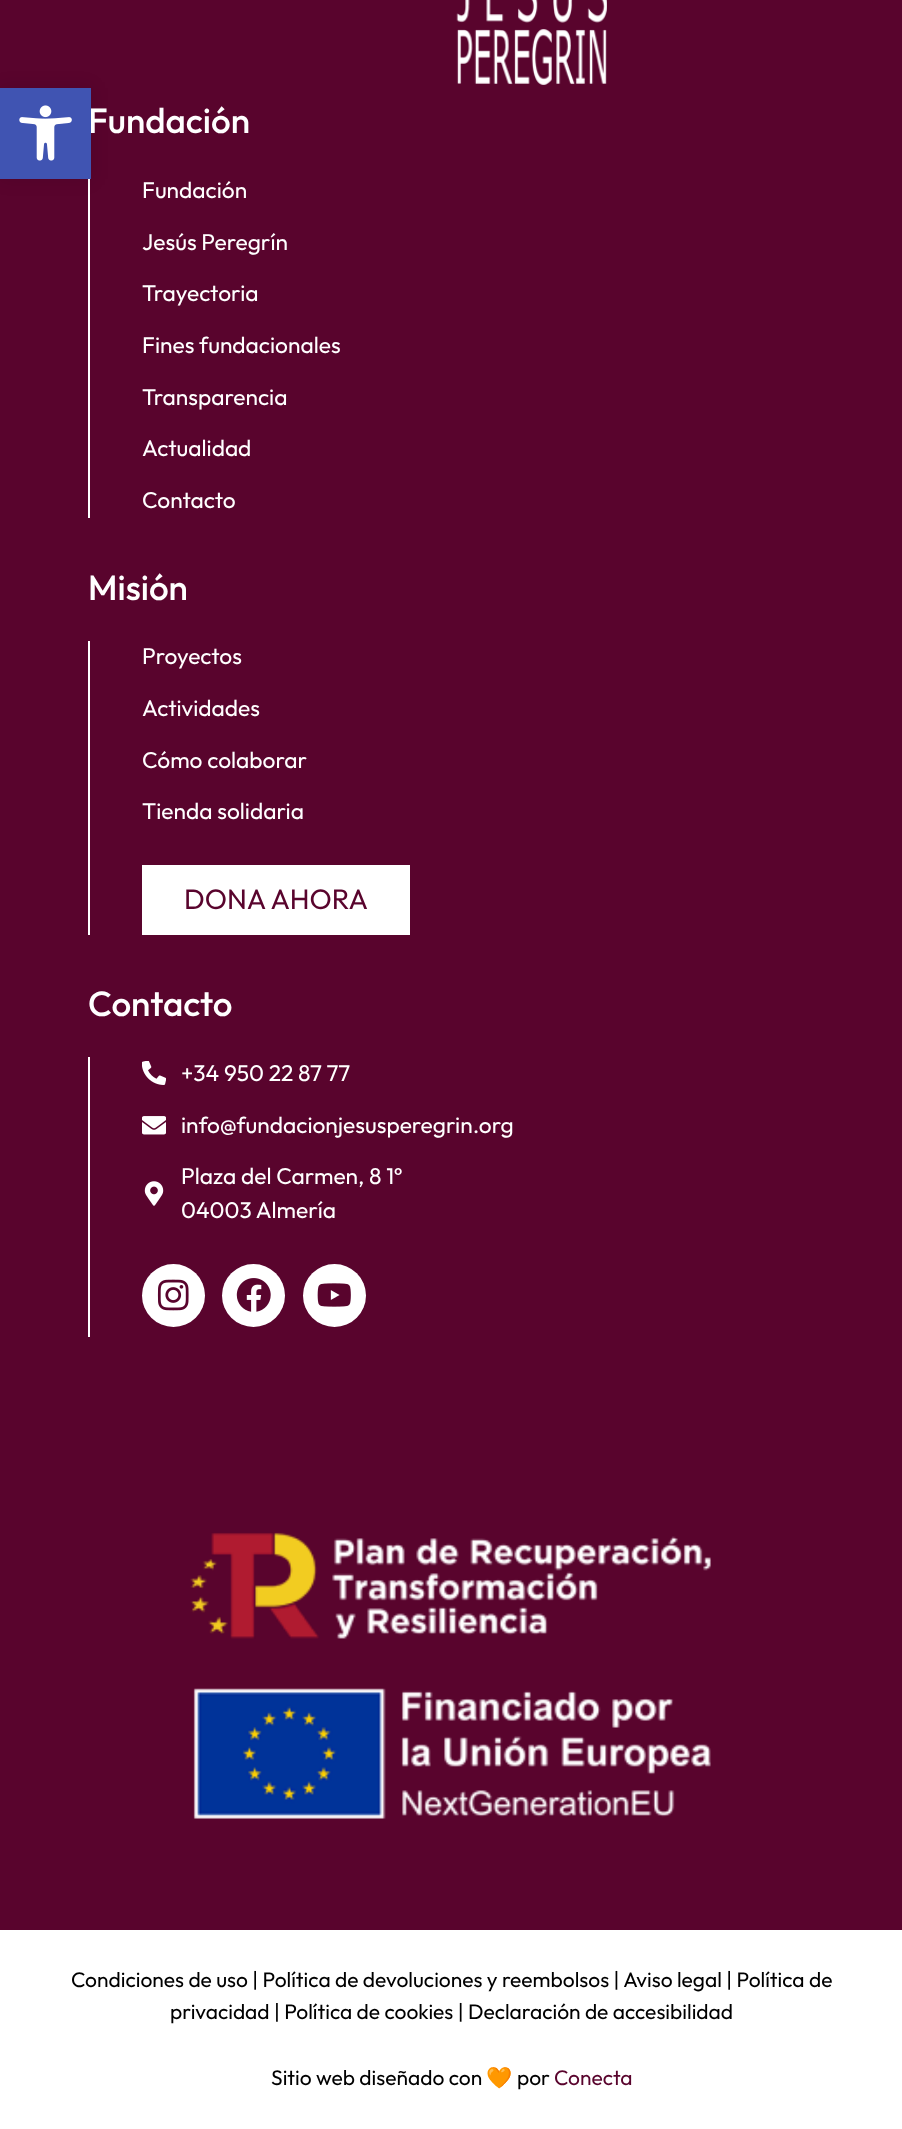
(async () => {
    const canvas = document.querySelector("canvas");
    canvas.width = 902;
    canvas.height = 2129;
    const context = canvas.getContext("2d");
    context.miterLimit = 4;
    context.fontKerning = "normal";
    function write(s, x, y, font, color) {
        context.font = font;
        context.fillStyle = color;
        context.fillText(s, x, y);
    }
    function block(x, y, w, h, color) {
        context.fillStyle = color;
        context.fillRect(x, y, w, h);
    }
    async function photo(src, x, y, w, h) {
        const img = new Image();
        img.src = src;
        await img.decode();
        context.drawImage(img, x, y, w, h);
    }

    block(0, 0, 902, 2129, "rgb(255, 255, 255)");
    block(0, 0, 902, 1930, "rgb(89, 4, 45)");
    block(88, 173, 2, 345, "rgb(255, 255, 255)");
    context.fillStyle = "rgba(0, 0, 0, 0.1)";
    context.filter = "blur(9px)";
    context.beginPath();
    context.rect(0, 88, 91, 91);
    context.fill();
    context.filter = "none";
    write("Fundación", 88, 133, "500 35px Outfit", "rgb(255, 255, 255)");
    block(0, 88, 91, 91, "rgb(64, 84, 178)");
    await photo("media/1.png", 19, 105, 53, 56);
    await photo("media/2.png", 456, 0, 151, 85);
    write("Fundación", 142, 198, "22.75px Outfit", "rgb(255, 255, 255)");
    write("Jesús Peregrín", 142, 250, "22.75px Outfit", "rgb(255, 255, 255)");
    write("Trayectoria", 142, 301, "22.75px Outfit", "rgb(255, 255, 255)");
    write("Fines fundacionales", 142, 353, "22.75px Outfit", "rgb(255, 255, 255)");
    write("Transparencia", 142, 405, "22.75px Outfit", "rgb(255, 255, 255)");
    write("Actualidad", 142, 456, "22.75px Outfit", "rgb(255, 255, 255)");
    write("Contacto", 142, 508, "22.75px Outfit", "rgb(255, 255, 255)");
    write("Misión", 88, 600, "500 35px Outfit", "rgb(255, 255, 255)");
    block(88, 641, 2, 294, "rgb(255, 255, 255)");
    write("Proyectos", 142, 664, "22.75px Outfit", "rgb(255, 255, 255)");
    write("Actividades", 142, 716, "22.75px Outfit", "rgb(255, 255, 255)");
    write("Cómo colaborar", 142, 768, "22.75px Outfit", "rgb(255, 255, 255)");
    write("Tienda solidaria", 142, 819, "22.75px Outfit", "rgb(255, 255, 255)");
    block(142, 865, 268, 70, "rgb(255, 255, 255)");
    write("DONA AHORA", 184, 909, "28px Outfit", "rgb(89, 4, 45)");
    write("Contacto", 88, 1016, "500 35px Outfit", "rgb(255, 255, 255)");
    block(88, 1057, 2, 280, "rgb(255, 255, 255)");
    await photo("media/3.png", 142, 1061, 24, 24);
    write("+34 950 22 87 77", 181, 1081, "22.75px Outfit", "rgb(255, 255, 255)");
    await photo("media/4.png", 142, 1116, 24, 19);
    write("info@fundacionjesusperegrin.org", 181, 1133, "22.75px Outfit", "rgb(255, 255, 255)");
    await photo("media/5.png", 144, 1181, 20, 25);
    write("Plaza del Carmen, 8 1º", 181, 1184, "22.75px Outfit", "rgb(255, 255, 255)");
    write("04003 Almería", 181, 1218, "22.75px Outfit", "rgb(255, 255, 255)");
    context.beginPath();
    context.arc(173.5, 1295.5, 31.5, 0, Math.PI * 2);
    context.fill();
    await photo("media/6.png", 157, 1279, 32, 32);
    context.beginPath();
    context.arc(253.5, 1295.5, 31.5, 0, Math.PI * 2);
    context.fill();
    await photo("media/7.png", 236, 1278, 35, 34);
    context.beginPath();
    context.arc(334.5, 1295.5, 31.5, 0, Math.PI * 2);
    context.fill();
    await photo("media/8.png", 317, 1283, 34, 24);
    await photo("media/9.png", 190, 1532, 521, 107);
    await photo("media/10.png", 193, 1688, 518, 131);
    write("Condiciones de uso | Política de devoluciones y reembolsos | Aviso legal | Política de", 71, 1987, "21px Outfit", "rgb(0, 0, 0)");
    write("privacidad | Política de cookies | Declaración de accesibilidad", 170, 2019, "21px Outfit", "rgb(0, 0, 0)");
    write("Sitio web diseñado con", 271, 2085, "21px Outfit", "rgb(0, 0, 0)");
    write("🧡", 486, 2085, "21px Noto Color Emoji", "rgb(0, 0, 0)");
    write("por", 517, 2085, "21px Outfit", "rgb(0, 0, 0)");
    write("Conecta", 554, 2085, "21px Outfit", "rgb(89, 4, 45)");
})();
